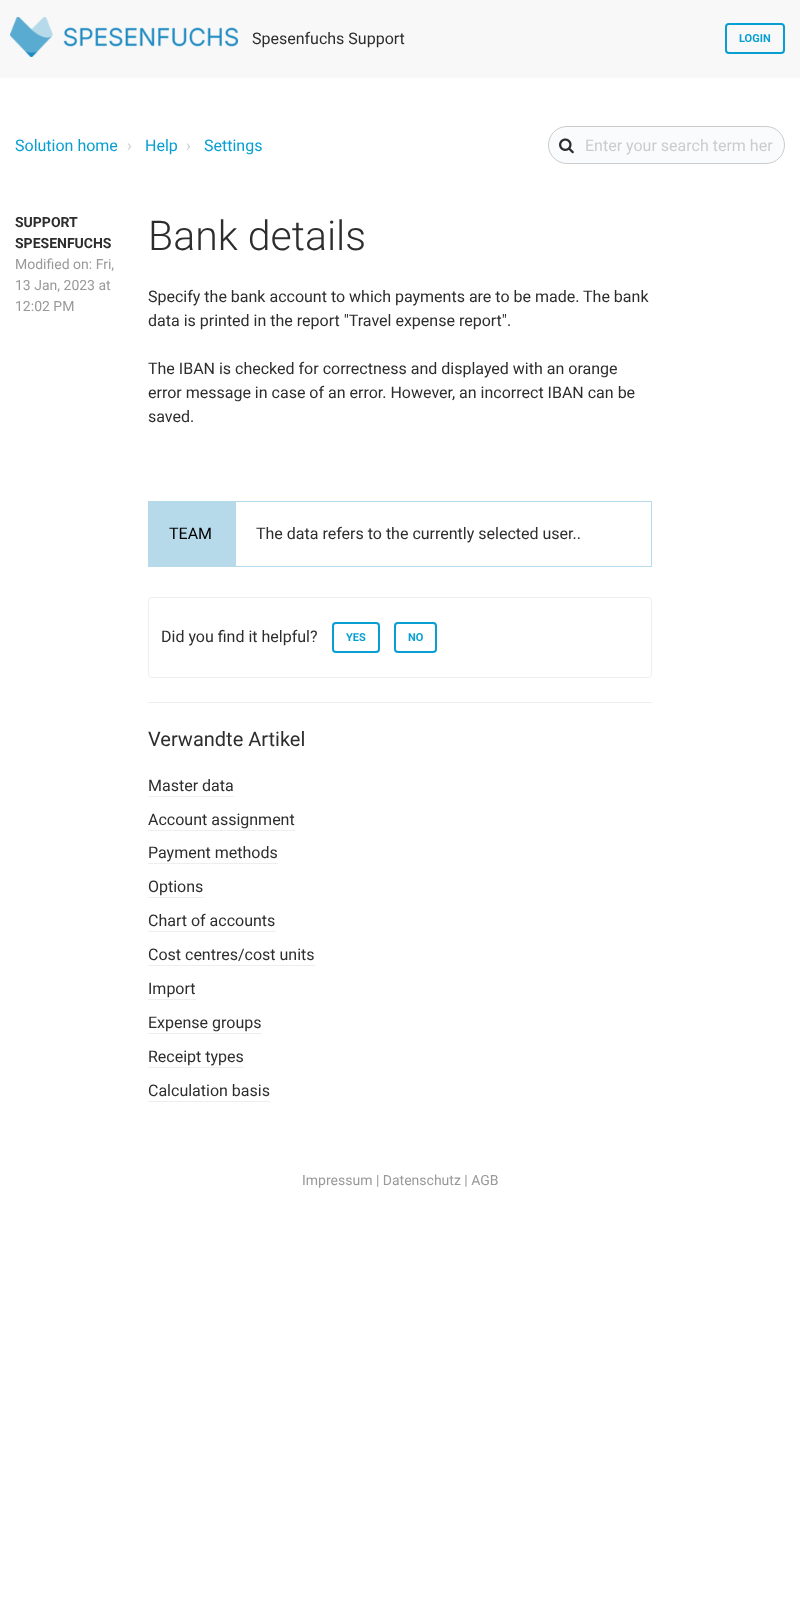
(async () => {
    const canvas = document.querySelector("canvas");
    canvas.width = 800;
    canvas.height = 1600;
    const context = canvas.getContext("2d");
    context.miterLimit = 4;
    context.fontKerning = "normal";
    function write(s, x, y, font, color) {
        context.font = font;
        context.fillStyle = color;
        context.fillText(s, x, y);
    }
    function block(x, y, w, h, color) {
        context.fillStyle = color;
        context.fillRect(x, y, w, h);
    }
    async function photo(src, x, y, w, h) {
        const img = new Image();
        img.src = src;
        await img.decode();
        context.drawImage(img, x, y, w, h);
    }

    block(0, 0, 800, 1600, "rgb(255, 255, 255)");
    block(0, 0, 800, 78, "rgb(248, 248, 248)");
    await photo("media/1.png", 10, 17, 228, 40);
    write("Spesenfuchs Support", 252, 44, "16px Roboto", "rgb(45, 45, 45)");
    context.beginPath();
    context.roundRect(726, 24, 58, 29, 3);
    context.strokeStyle = "rgb(7, 159, 210)";
    context.lineWidth = 2;
    context.stroke();
    write("LOGIN", 739, 42, "bold 11px Roboto", "rgb(7, 159, 210)");
    write("Solution home", 15, 151, "16px Roboto", "rgb(7, 159, 210)");
    write("›", 127, 151, "16px Roboto", "rgb(204, 204, 204)");
    write("Help", 145, 151, "16px Roboto", "rgb(7, 159, 210)");
    write("›", 186, 151, "16px Roboto", "rgb(204, 204, 204)");
    write("Settings", 204, 151, "16px Roboto", "rgb(7, 159, 210)");
    context.fillStyle = "rgb(249, 251, 253)";
    context.beginPath();
    context.roundRect(548.5, 126.5, 236, 37, 18.5);
    context.fill();
    context.strokeStyle = "rgb(204, 204, 204)";
    context.lineWidth = 1;
    context.stroke();
    await photo("media/2.png", 559, 138, 15, 16);
    write("Enter your search term her", 585, 151, "16px Roboto", "rgb(204, 204, 204)");
    write("SUPPORT", 15, 227, "bold 14px Roboto", "rgb(45, 45, 45)");
    write("SPESENFUCHS", 15, 248, "bold 14px Roboto", "rgb(45, 45, 45)");
    write("Modified on: Fri,", 15, 269, "14px Roboto", "rgb(153, 153, 153)");
    write("13 Jan, 2023 at", 15, 290, "14px Roboto", "rgb(153, 153, 153)");
    write("12:02 PM", 15, 311, "14px Roboto", "rgb(153, 153, 153)");
    write("Bank details", 148, 250, "300 41px Roboto", "rgb(45, 45, 45)");
    write("Specify the bank account to which payments are to be made. The bank", 148, 302, "16px Roboto", "rgb(45, 45, 45)");
    write("data is printed in the report \"Travel expense report\".", 148, 326, "16px Roboto", "rgb(45, 45, 45)");
    write("The IBAN is checked for correctness and displayed with an orange", 148, 374, "16px Roboto", "rgb(45, 45, 45)");
    write("error message in case of an error. However, an incorrect IBAN can be", 148, 398, "16px Roboto", "rgb(45, 45, 45)");
    write("saved.", 148, 422, "16px Roboto", "rgb(45, 45, 45)");
    context.strokeStyle = "rgb(182, 218, 234)";
    context.strokeRect(148.5, 501.5, 503, 65);
    block(149, 502, 87, 64, "rgb(182, 218, 234)");
    write("TEAM", 169, 539, "16px Roboto", "rgb(0, 0, 0)");
    write("The data refers to the currently selected user..", 256, 539, "16px Roboto", "rgb(45, 45, 45)");
    context.beginPath();
    context.roundRect(148.5, 597.5, 503, 80, 3.5);
    context.strokeStyle = "rgb(238, 238, 238)";
    context.stroke();
    write("Did you find it helpful?", 161, 642, "16px Roboto", "rgb(45, 45, 45)");
    context.beginPath();
    context.roundRect(333, 623, 46, 29, 3);
    context.strokeStyle = "rgb(7, 159, 210)";
    context.lineWidth = 2;
    context.stroke();
    write("YES", 346, 641, "bold 11px Roboto", "rgb(7, 159, 210)");
    context.beginPath();
    context.roundRect(395, 623, 41, 29, 3);
    context.stroke();
    write("NO", 408, 641, "bold 11px Roboto", "rgb(7, 159, 210)");
    block(148, 702, 504, 1, "rgb(238, 238, 238)");
    write("Verwandte Artikel", 148, 746, "20px Roboto", "rgb(45, 45, 45)");
    write("Master data", 148, 791, "16px Roboto", "rgb(45, 45, 45)");
    block(148, 796, 86, 1, "rgb(238, 238, 238)");
    write("Account assignment", 148, 825, "16px Roboto", "rgb(45, 45, 45)");
    block(148, 830, 147, 1, "rgb(238, 238, 238)");
    write("Payment methods", 148, 858, "16px Roboto", "rgb(45, 45, 45)");
    block(148, 863, 130, 1, "rgb(238, 238, 238)");
    write("Options", 148, 892, "16px Roboto", "rgb(45, 45, 45)");
    block(148, 897, 56, 1, "rgb(238, 238, 238)");
    write("Chart of accounts", 148, 926, "16px Roboto", "rgb(45, 45, 45)");
    block(148, 931, 128, 1, "rgb(238, 238, 238)");
    write("Cost centres/cost units", 148, 960, "16px Roboto", "rgb(45, 45, 45)");
    block(148, 965, 167, 1, "rgb(238, 238, 238)");
    write("Import", 148, 994, "16px Roboto", "rgb(45, 45, 45)");
    block(148, 999, 48, 1, "rgb(238, 238, 238)");
    write("Expense groups", 148, 1028, "16px Roboto", "rgb(45, 45, 45)");
    block(148, 1033, 114, 1, "rgb(238, 238, 238)");
    write("Receipt types", 148, 1062, "16px Roboto", "rgb(45, 45, 45)");
    block(148, 1067, 96, 1, "rgb(238, 238, 238)");
    write("Calculation basis", 148, 1096, "16px Roboto", "rgb(45, 45, 45)");
    block(148, 1101, 122, 1, "rgb(238, 238, 238)");
    write("Impressum | Datenschutz | AGB", 302, 1185, "14px Roboto", "rgb(153, 153, 153)");
})();
